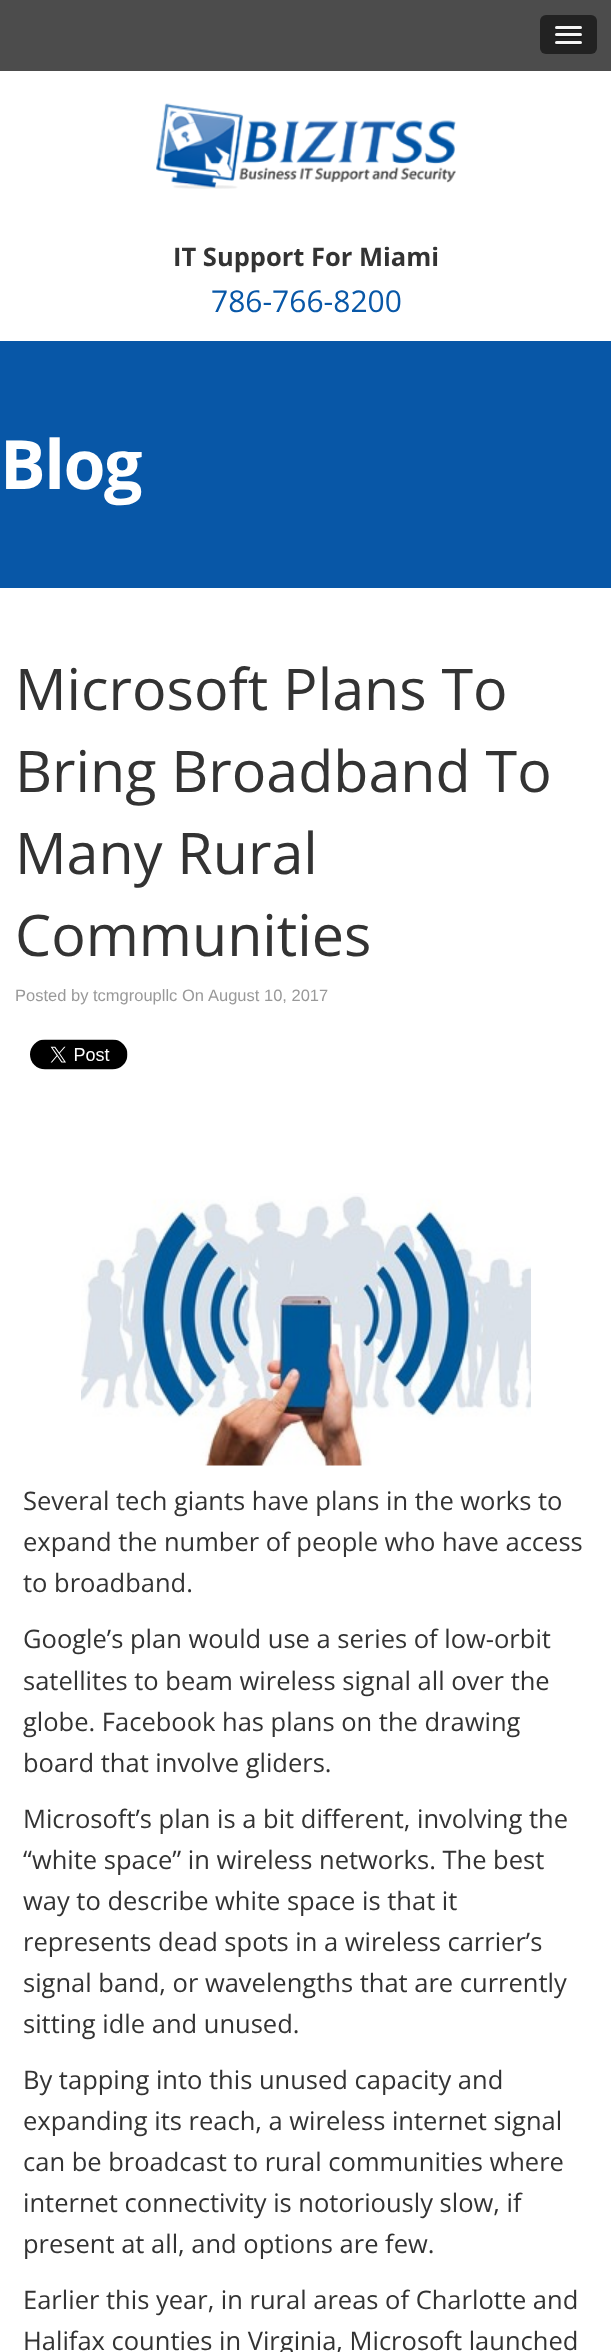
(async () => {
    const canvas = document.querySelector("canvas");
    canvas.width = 611;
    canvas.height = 2352;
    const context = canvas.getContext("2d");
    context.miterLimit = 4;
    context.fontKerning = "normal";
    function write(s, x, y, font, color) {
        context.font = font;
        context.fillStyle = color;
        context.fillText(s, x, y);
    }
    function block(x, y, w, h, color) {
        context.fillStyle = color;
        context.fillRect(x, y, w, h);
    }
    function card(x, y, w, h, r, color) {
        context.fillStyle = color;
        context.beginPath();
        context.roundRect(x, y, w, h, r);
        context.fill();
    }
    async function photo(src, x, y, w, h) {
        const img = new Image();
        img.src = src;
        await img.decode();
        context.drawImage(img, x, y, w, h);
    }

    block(0, 0, 611, 2352, "rgb(255, 255, 255)");
    block(0, 0, 611, 71, "rgb(76, 76, 76)");
    card(540, 15, 57, 39, 6, "rgb(34, 34, 34)");
    context.fillStyle = "rgb(26, 26, 26)";
    context.beginPath();
    context.moveTo(555, 27.5);
    context.bezierCurveTo(553.5, 31, 560.5, 30, 560.5, 30);
    context.lineTo(576.5, 30);
    context.bezierCurveTo(576.5, 30, 583.5, 31, 582, 27.5);
    context.bezierCurveTo(581.5, 28, 581, 28.5, 580.5, 28.5);
    context.lineTo(556.5, 28.5);
    context.bezierCurveTo(556, 28.5, 555.5, 28, 555, 27.5);
    context.closePath();
    context.fill();
    card(555, 26, 27, 3, 1.5, "rgb(245, 245, 245)");
    context.fillStyle = "rgb(26, 26, 26)";
    context.beginPath();
    context.moveTo(555.5, 35.5);
    context.lineTo(555, 37);
    context.bezierCurveTo(555.5, 39, 560, 38, 560.5, 38);
    context.lineTo(576.5, 38);
    context.bezierCurveTo(577, 38, 581.5, 39, 582, 37);
    context.lineTo(581.5, 35.5);
    context.lineTo(580.5, 36);
    context.lineTo(556.5, 36);
    context.closePath();
    context.fill();
    card(555, 33, 27, 3, 1.5, "rgb(245, 245, 245)");
    context.fillStyle = "rgb(26, 26, 26)";
    context.beginPath();
    context.moveTo(555, 42.5);
    context.bezierCurveTo(553.5, 46, 560.5, 45, 560.5, 45);
    context.lineTo(576.5, 45);
    context.bezierCurveTo(576.5, 45, 583.5, 46, 582, 42.5);
    context.bezierCurveTo(581.5, 43, 581, 43.5, 580.5, 43.5);
    context.lineTo(556.5, 43.5);
    context.bezierCurveTo(556, 43.5, 555.5, 43, 555, 42.5);
    context.closePath();
    context.fill();
    card(555, 41, 27, 3, 1.5, "rgb(245, 245, 245)");
    await photo("media/1.png", 156, 103, 300, 86);
    write("IT Support For Miami", 173, 266, "bold 25.5px Open Sans", "rgb(51, 51, 51)");
    write("786-766-8200", 211, 312, "30px Open Sans", "rgb(8, 87, 167)");
    block(0, 341, 611, 247, "rgb(8, 87, 167)");
    context.letterSpacing = "-1.5px";
    write("Blog", 0, 489, "bold 68px Open Sans", "rgb(255, 255, 255)");
    context.letterSpacing = "0px";
    write("Microsoft Plans To", 15, 710, "57.4px Open Sans", "rgb(51, 51, 51)");
    write("Bring Broadband To", 15, 792, "57.4px Open Sans", "rgb(51, 51, 51)");
    write("Many Rural", 15, 874, "57.4px Open Sans", "rgb(51, 51, 51)");
    write("Communities", 15, 956, "57.4px Open Sans", "rgb(51, 51, 51)");
    write("Posted by tcmgroupllc On", 15, 1001, "16.5px Liberation Sans", "rgb(153, 153, 153)");
    write("August 10, 2017", 208, 1001, "16.5px Liberation Sans", "rgb(153, 153, 153)");
    await photo("media/2.png", 30, 1039, 98, 31);
    await photo("media/3.png", 81, 1193, 450, 273);
    write("Several tech giants have plans in the works to", 23, 1510, "25.5px Open Sans", "rgb(51, 51, 51)");
    write("expand the number of people who have access", 23, 1551, "25.5px Open Sans", "rgb(51, 51, 51)");
    write("to broadband.", 23, 1592, "25.5px Open Sans", "rgb(51, 51, 51)");
    write("Google’s plan would use a series of low-orbit", 23, 1648, "25.5px Open Sans", "rgb(51, 51, 51)");
    write("satellites to beam wireless signal all over the", 23, 1690, "25.5px Open Sans", "rgb(51, 51, 51)");
    write("globe. Facebook has plans on the drawing", 23, 1731, "25.5px Open Sans", "rgb(51, 51, 51)");
    write("board that involve gliders.", 23, 1772, "25.5px Open Sans", "rgb(51, 51, 51)");
    write("Microsoft’s plan is a bit different, involving the", 23, 1828, "25.5px Open Sans", "rgb(51, 51, 51)");
    write("“white space” in wireless networks. The best", 23, 1869, "25.5px Open Sans", "rgb(51, 51, 51)");
    write("way to describe white space is that it", 23, 1910, "25.5px Open Sans", "rgb(51, 51, 51)");
    write("represents dead spots in a wireless carrier’s", 23, 1951, "25.5px Open Sans", "rgb(51, 51, 51)");
    write("signal band, or wavelengths that are currently", 23, 1992, "25.5px Open Sans", "rgb(51, 51, 51)");
    write("sitting idle and unused.", 23, 2033, "25.5px Open Sans", "rgb(51, 51, 51)");
    write("By tapping into this unused capacity and", 23, 2089, "25.5px Open Sans", "rgb(51, 51, 51)");
    write("expanding its reach, a wireless internet signal", 23, 2130, "25.5px Open Sans", "rgb(51, 51, 51)");
    write("can be broadcast to rural communities where", 23, 2171, "25.5px Open Sans", "rgb(51, 51, 51)");
    write("internet connectivity is notoriously slow, if", 23, 2212, "25.5px Open Sans", "rgb(51, 51, 51)");
    write("present at all, and options are few.", 23, 2253, "25.5px Open Sans", "rgb(51, 51, 51)");
    write("Earlier this year, in rural areas of Charlotte and", 23, 2309, "25.5px Open Sans", "rgb(51, 51, 51)");
    write("Halifax counties in Virginia, Microsoft launched", 23, 2350, "25.5px Open Sans", "rgb(51, 51, 51)");
})();
